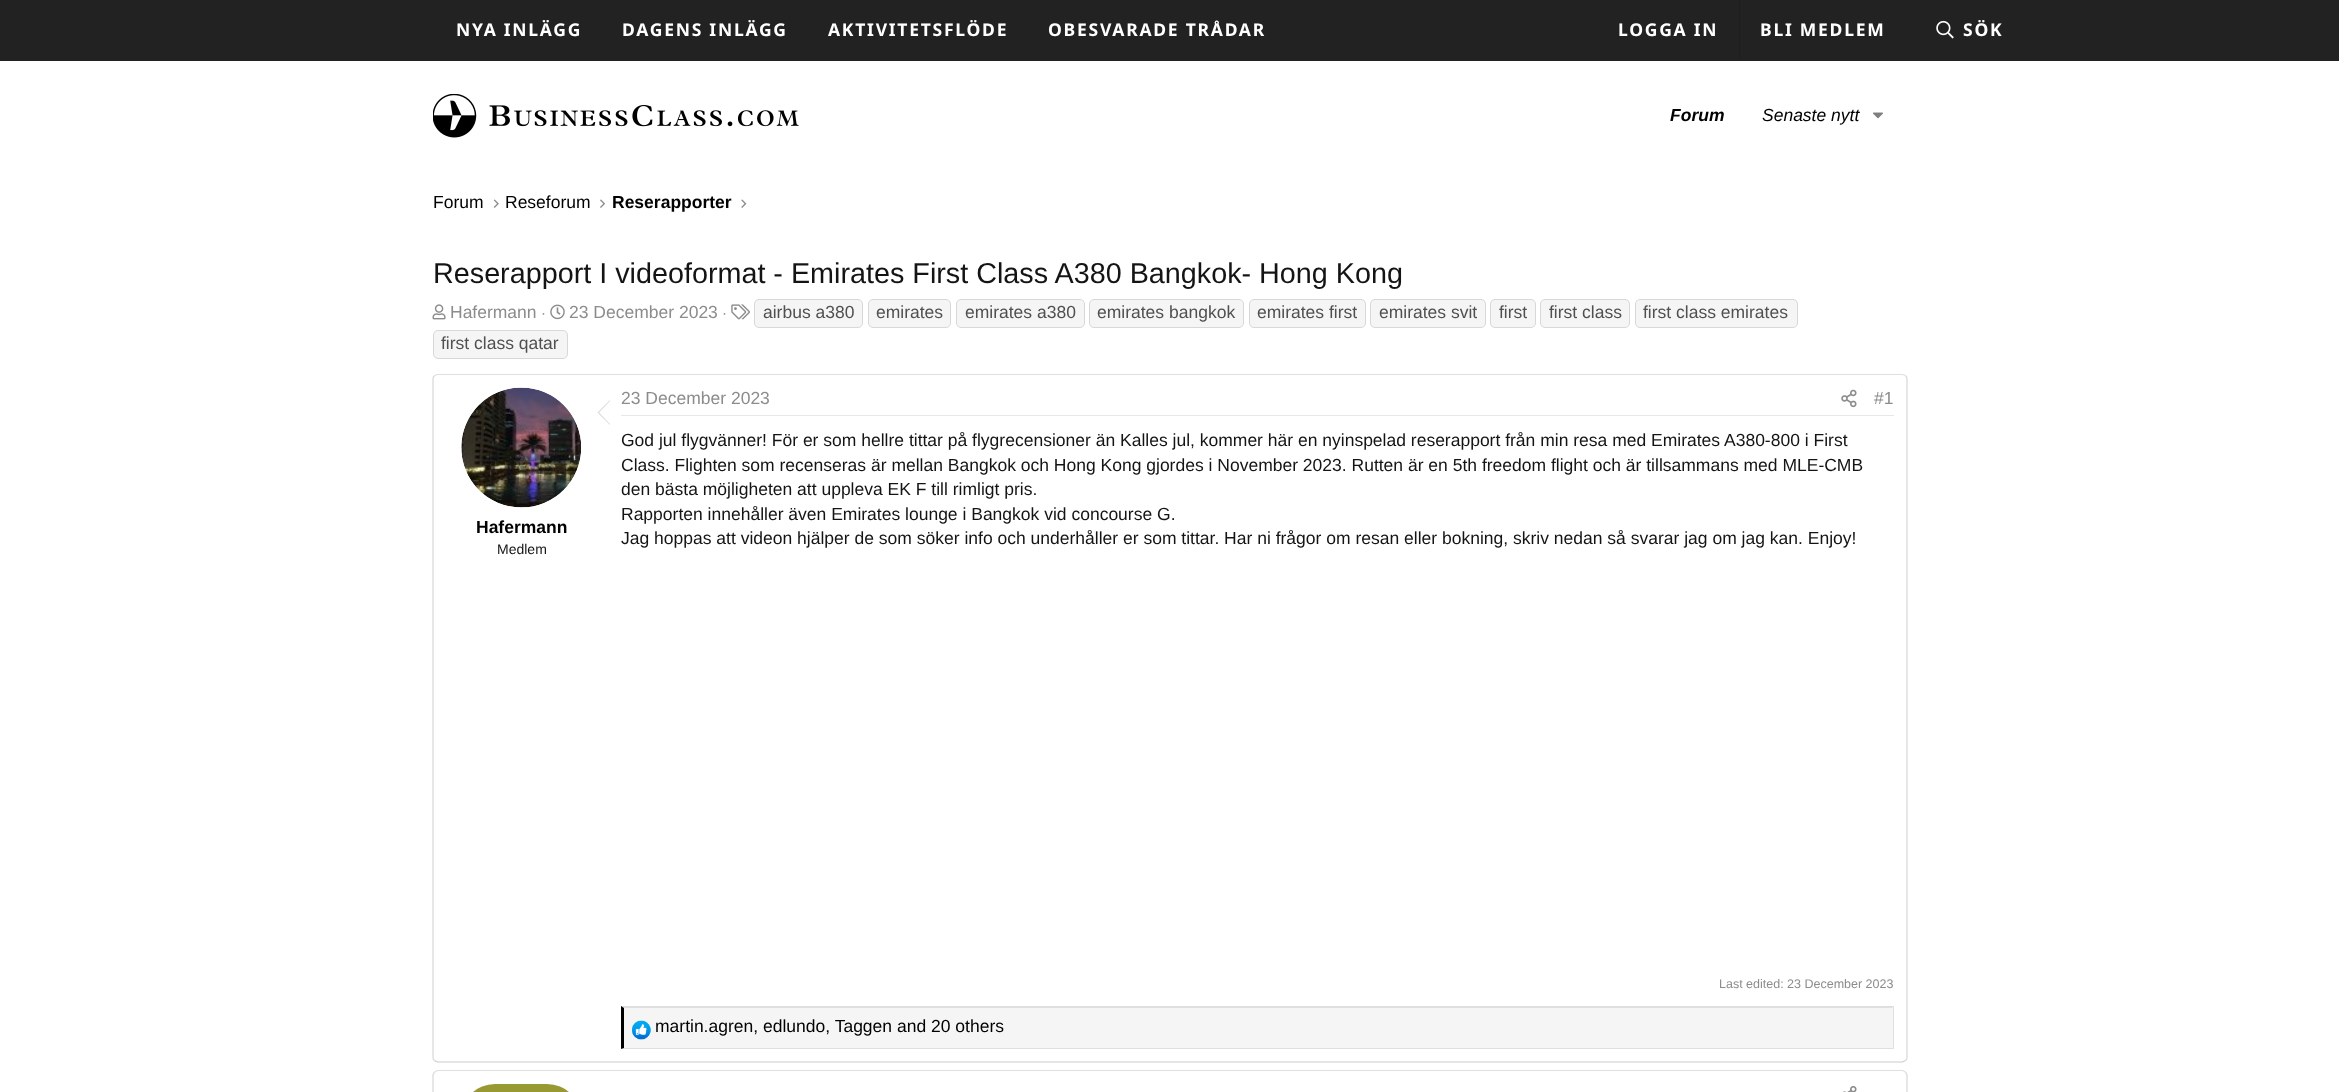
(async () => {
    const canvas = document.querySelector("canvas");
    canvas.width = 2339;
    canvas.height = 1092;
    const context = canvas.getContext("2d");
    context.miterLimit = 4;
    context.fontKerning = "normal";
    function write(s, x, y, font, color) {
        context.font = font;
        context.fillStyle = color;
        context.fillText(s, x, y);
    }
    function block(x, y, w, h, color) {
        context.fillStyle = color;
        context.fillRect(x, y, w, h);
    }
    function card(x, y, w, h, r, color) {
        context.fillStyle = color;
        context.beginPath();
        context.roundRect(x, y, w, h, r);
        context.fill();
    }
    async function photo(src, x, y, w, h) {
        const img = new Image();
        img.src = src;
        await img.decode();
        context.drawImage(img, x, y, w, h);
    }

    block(0, 0, 2339, 1092, "rgb(255, 255, 255)");
    block(0, 0, 2339, 61, "rgb(34, 34, 34)");
    context.letterSpacing = "1.75px";
    write("NYA INLÄGG", 456, 36, "bold 17.5px Noto Sans", "rgb(255, 255, 255)");
    write("DAGENS INLÄGG", 622, 36, "bold 17.5px Noto Sans", "rgb(255, 255, 255)");
    write("AKTIVITETSFLÖDE", 828, 36, "bold 17.5px Noto Sans", "rgb(255, 255, 255)");
    write("OBESVARADE TRÅDAR", 1048, 36, "bold 17.5px Noto Sans", "rgb(255, 255, 255)");
    write("LOGGA IN", 1618, 36, "bold 17.5px Noto Sans", "rgb(255, 255, 255)");
    block(1739, 0, 1, 60, "rgb(30, 30, 30)");
    write("BLI MEDLEM", 1760, 36, "bold 17.5px Noto Sans", "rgb(255, 255, 255)");
    await photo("media/1.png", 1936, 20, 18, 19);
    write("SÖK", 1963, 36, "bold 17.5px Noto Sans", "rgb(255, 255, 255)");
    await photo("media/2.png", 433, 94, 366, 44);
    context.letterSpacing = "0px";
    write("Forum", 1670, 121, "italic bold 17.5px Liberation Sans", "rgb(0, 0, 0)");
    write("Senaste nytt", 1762, 121, "italic 17.5px Liberation Sans", "rgb(0, 0, 0)");
    await photo("media/3.png", 1873, 112, 10, 7);
    write("Forum", 433, 208, "17.5px Liberation Sans", "rgb(0, 0, 0)");
    await photo("media/4.png", 493, 199, 6, 9);
    write("Reseforum", 505, 208, "17.5px Liberation Sans", "rgb(0, 0, 0)");
    await photo("media/5.png", 600, 199, 5, 9);
    write("Reserapporter", 612, 208, "bold 17.5px Liberation Sans", "rgb(0, 0, 0)");
    await photo("media/6.png", 741, 199, 6, 9);
    write("Reserapport I videoformat - Emirates First Class A380 Bangkok- Hong Kong", 433, 283, "28.75px Liberation Sans", "rgb(20, 20, 20)");
    await photo("media/7.png", 731, 304, 19, 16);
    context.fillStyle = "rgb(245, 245, 245)";
    context.beginPath();
    context.roundRect(754.5, 299.5, 108, 28, 4.5);
    context.fill();
    context.strokeStyle = "rgb(216, 216, 216)";
    context.stroke();
    write("airbus a380", 763, 318, "17.5px Liberation Sans", "rgb(80, 80, 80)");
    context.fillStyle = "rgb(245, 245, 245)";
    context.beginPath();
    context.roundRect(868.5, 299.5, 82, 28, 4.5);
    context.fill();
    context.stroke();
    write("emirates", 876, 318, "17.5px Liberation Sans", "rgb(80, 80, 80)");
    context.fillStyle = "rgb(245, 245, 245)";
    context.beginPath();
    context.roundRect(956.5, 299.5, 128, 28, 4.5);
    context.fill();
    context.stroke();
    write("emirates a380", 965, 318, "17.5px Liberation Sans", "rgb(80, 80, 80)");
    context.fillStyle = "rgb(245, 245, 245)";
    context.beginPath();
    context.roundRect(1089.5, 299.5, 154, 28, 4.5);
    context.fill();
    context.stroke();
    write("emirates bangkok", 1097, 318, "17.5px Liberation Sans", "rgb(80, 80, 80)");
    context.fillStyle = "rgb(245, 245, 245)";
    context.beginPath();
    context.roundRect(1249.5, 299.5, 116, 28, 4.5);
    context.fill();
    context.stroke();
    write("emirates first", 1257, 318, "17.5px Liberation Sans", "rgb(80, 80, 80)");
    context.fillStyle = "rgb(245, 245, 245)";
    context.beginPath();
    context.roundRect(1370.5, 299.5, 115, 28, 4.5);
    context.fill();
    context.stroke();
    write("emirates svit", 1379, 318, "17.5px Liberation Sans", "rgb(80, 80, 80)");
    context.fillStyle = "rgb(245, 245, 245)";
    context.beginPath();
    context.roundRect(1490.5, 299.5, 45, 28, 4.5);
    context.fill();
    context.stroke();
    write("first", 1499, 318, "17.5px Liberation Sans", "rgb(80, 80, 80)");
    context.fillStyle = "rgb(245, 245, 245)";
    context.beginPath();
    context.roundRect(1540.5, 299.5, 89, 28, 4.5);
    context.fill();
    context.stroke();
    write("first class", 1549, 318, "17.5px Liberation Sans", "rgb(80, 80, 80)");
    context.fillStyle = "rgb(245, 245, 245)";
    context.beginPath();
    context.roundRect(1635.5, 299.5, 162, 28, 4.5);
    context.fill();
    context.stroke();
    write("first class emirates", 1643, 318, "17.5px Liberation Sans", "rgb(80, 80, 80)");
    context.fillStyle = "rgb(245, 245, 245)";
    context.beginPath();
    context.roundRect(433.5, 330.5, 134, 28, 4.5);
    context.fill();
    context.stroke();
    write("first class qatar", 441, 349, "17.5px Liberation Sans", "rgb(80, 80, 80)");
    write("·", 722, 318, "15px Liberation Sans", "rgb(140, 140, 140)");
    await photo("media/8.png", 432, 304, 14, 16);
    write("Hafermann", 450, 318, "17.5px Liberation Sans", "rgb(140, 140, 140)");
    write("·", 541, 318, "15px Liberation Sans", "rgb(140, 140, 140)");
    await photo("media/9.png", 550, 304, 15, 16);
    write("23 December 2023", 569, 318, "17.5px Liberation Sans", "rgb(140, 140, 140)");
    context.beginPath();
    context.moveTo(434.5, 375.5);
    context.lineTo(437.5, 374.5);
    context.lineTo(1902.5, 374.5);
    context.lineTo(1905.5, 375.5);
    context.strokeStyle = "rgb(223, 223, 223)";
    context.lineWidth = 1.2;
    context.stroke();
    context.beginPath();
    context.moveTo(1905.5, 375.5);
    context.bezierCurveTo(1906.5, 376.5, 1907, 377.5, 1907, 379);
    context.lineTo(1907, 1057.5);
    context.bezierCurveTo(1907, 1058.5, 1906.5, 1060, 1905.5, 1060.5);
    context.strokeStyle = "rgb(216, 216, 216)";
    context.stroke();
    context.beginPath();
    context.moveTo(1905.5, 1060.5);
    context.lineTo(1902.5, 1062);
    context.lineTo(437.5, 1062);
    context.lineTo(434.5, 1060.5);
    context.strokeStyle = "rgb(203, 203, 203)";
    context.stroke();
    context.beginPath();
    context.moveTo(434.5, 1060.5);
    context.bezierCurveTo(433.5, 1060, 433, 1058.5, 433, 1057.5);
    context.lineTo(433, 379);
    context.bezierCurveTo(433, 377.5, 433.5, 376.5, 434.5, 375.5);
    context.strokeStyle = "rgb(216, 216, 216)";
    context.stroke();
    await photo("media/10.png", 461, 387, 120, 121);
    context.fillStyle = "rgb(216, 216, 216)";
    context.beginPath();
    context.moveTo(610, 400);
    context.lineTo(610, 425);
    context.lineTo(597.5, 412.5);
    context.closePath();
    context.fill();
    context.fillStyle = "rgb(254, 254, 254)";
    context.beginPath();
    context.moveTo(610, 401);
    context.lineTo(610, 424);
    context.lineTo(599, 412.5);
    context.closePath();
    context.fill();
    write("Hafermann", 476, 533, "bold 17.5px Liberation Sans", "rgb(0, 0, 0)");
    write("Medlem", 497, 554, "14px Liberation Sans", "rgb(20, 20, 20)");
    block(621, 415, 1273, 1, "rgb(231, 231, 231)");
    write("23 December 2023", 621, 404, "17.5px Liberation Sans", "rgb(140, 140, 140)");
    await photo("media/11.png", 1841, 389, 16, 19);
    write("#1", 1874, 404, "17.5px Liberation Sans", "rgb(140, 140, 140)");
    write("God jul flygvänner! För er som hellre tittar på flygrecensioner än Kalles jul, kommer här en nyinspelad reserapport från min resa med Emirates A380-800 i First", 621, 446, "17.5px Liberation Sans", "rgb(20, 20, 20)");
    write("Class. Flighten som recenseras är mellan Bangkok och Hong Kong gjordes i November 2023. Rutten är en 5th freedom flight och är tillsammans med MLE-CMB", 621, 471, "17.5px Liberation Sans", "rgb(20, 20, 20)");
    write("den bästa möjligheten att uppleva EK F till rimligt pris.", 621, 495, "17.5px Liberation Sans", "rgb(20, 20, 20)");
    write("Rapporten innehåller även Emirates lounge i Bangkok vid concourse G.", 621, 520, "17.5px Liberation Sans", "rgb(20, 20, 20)");
    write("Jag hoppas att videon hjälper de som söker info och underhåller er som tittar. Har ni frågor om resan eller bokning, skriv nedan så svarar jag om jag kan. Enjoy!", 621, 544, "17.5px Liberation Sans", "rgb(20, 20, 20)");
    write("Last edited: 23 December 2023", 1719, 988, "12.5px Liberation Sans", "rgb(140, 140, 140)");
    block(624, 1008, 1269, 40, "rgb(245, 245, 245)");
    context.fillStyle = "rgb(223, 223, 223)";
    context.beginPath();
    context.moveTo(621, 1006);
    context.lineTo(1894, 1006);
    context.lineTo(1892, 1008);
    context.lineTo(624, 1008);
    context.closePath();
    context.fill();
    block(1893, 1006, 1, 43, "rgb(223, 223, 223)");
    context.beginPath();
    context.moveTo(1894, 1049);
    context.lineTo(621, 1049);
    context.lineTo(624, 1048);
    context.lineTo(1892, 1048);
    context.closePath();
    context.fill();
    context.fillStyle = "rgb(0, 0, 0)";
    context.beginPath();
    context.moveTo(621, 1049);
    context.lineTo(621, 1006);
    context.lineTo(624, 1008);
    context.lineTo(624, 1048);
    context.closePath();
    context.fill();
    await photo("media/12.png", 632, 1020, 19, 20);
    write("martin.agren, edlundo, Taggen and 20 others", 655, 1032, "17.5px Liberation Sans", "rgb(0, 0, 0)");
    context.beginPath();
    context.moveTo(434.5, 1072);
    context.lineTo(437.5, 1070.5);
    context.lineTo(1902.5, 1070.5);
    context.lineTo(1905.5, 1072);
    context.strokeStyle = "rgb(223, 223, 223)";
    context.stroke();
    context.beginPath();
    context.moveTo(1905.5, 1072);
    context.lineTo(1907, 1075);
    context.lineTo(1907, 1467.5);
    context.lineTo(1905.5, 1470.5);
    context.strokeStyle = "rgb(216, 216, 216)";
    context.stroke();
    context.beginPath();
    context.moveTo(434.5, 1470.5);
    context.lineTo(433, 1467.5);
    context.lineTo(433, 1075);
    context.lineTo(434.5, 1072);
    context.stroke();
    card(461, 1084, 120, 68, 60, "rgb(153, 153, 51)");
    await photo("media/13.png", 1843, 1086, 14, 6);
})();
